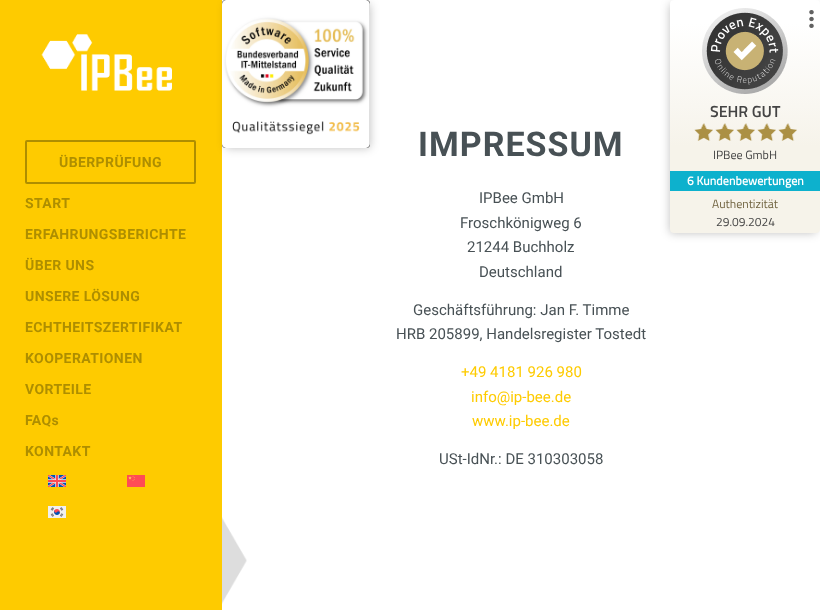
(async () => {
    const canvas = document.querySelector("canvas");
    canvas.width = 820;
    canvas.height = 610;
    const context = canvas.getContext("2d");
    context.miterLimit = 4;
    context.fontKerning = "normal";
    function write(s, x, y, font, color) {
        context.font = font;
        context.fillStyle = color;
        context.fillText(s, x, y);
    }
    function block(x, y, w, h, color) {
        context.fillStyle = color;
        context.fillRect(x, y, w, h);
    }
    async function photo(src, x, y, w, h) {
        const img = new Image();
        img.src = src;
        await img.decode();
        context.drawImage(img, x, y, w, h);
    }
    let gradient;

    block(0, 0, 820, 610, "rgb(254, 203, 0)");
    block(222, 0, 598, 610, "rgb(255, 255, 255)");
    context.fillStyle = "rgba(0, 0, 0, 0.25)";
    context.filter = "blur(5px)";
    context.beginPath();
    context.roundRect(226, 4, 144, 144, 2);
    context.fill();
    context.filter = "none";
    await photo("media/1.png", 222, 0, 148, 148);
    context.filter = "blur(5px)";
    context.beginPath();
    context.roundRect(670, 4, 146, 229, 2);
    context.fill();
    context.filter = "none";
    gradient = context.createLinearGradient(745, 233, 745, 0);
    gradient.addColorStop(0.37, "rgb(246, 243, 234)");
    gradient.addColorStop(0.9, "rgb(255, 255, 255)");
    context.fillStyle = gradient;
    context.beginPath();
    context.roundRect(670, 0, 150, 233, 4);
    context.fill();
    await photo("media/2.png", 702, 8, 86, 86);
    await photo("media/3.png", 809, 10, 5, 18);
    write("SEHR GUT", 710, 117, "600 16px Titillium Web", "rgb(68, 68, 68)");
    await photo("media/4.png", 694, 123, 19, 18);
    await photo("media/4.png", 715, 123, 19, 18);
    await photo("media/5.png", 736, 123, 19, 18);
    await photo("media/5.png", 757, 123, 19, 18);
    await photo("media/5.png", 778, 123, 19, 18);
    write("IPBee GmbH", 713, 159, "12px Titillium Web", "rgb(68, 68, 68)");
    block(670, 171, 150, 20, "rgb(13, 177, 205)");
    context.letterSpacing = "0.1px";
    write("6 Kundenbewertungen", 687, 185, "bold 12px Titillium Web", "rgb(255, 255, 255)");
    context.letterSpacing = "0px";
    write("Authentizität", 712, 208, "12px Titillium Web", "rgb(114, 101, 66)");
    write("29.09.2024", 716, 226, "12px Titillium Web", "rgb(68, 68, 68)");
    await photo("media/6.png", 41, 34, 131, 57);
    context.beginPath();
    context.roundRect(26, 141, 169, 42, 1);
    context.strokeStyle = "rgb(174, 142, 0)";
    context.lineWidth = 2;
    context.stroke();
    context.letterSpacing = "0.4px";
    write("ÜBERPRÜFUNG", 59, 167, "bold 14px Roboto", "rgb(174, 142, 0)");
    write("START", 25, 208, "bold 14px Roboto", "rgb(174, 142, 0)");
    write("ERFAHRUNGSBERICHTE", 25, 239, "bold 14px Roboto", "rgb(174, 142, 0)");
    write("ÜBER UNS", 25, 270, "bold 14px Roboto", "rgb(174, 142, 0)");
    write("UNSERE LÖSUNG", 25, 301, "bold 14px Roboto", "rgb(174, 142, 0)");
    write("ECHTHEITSZERTIFIKAT", 25, 332, "bold 14px Roboto", "rgb(174, 142, 0)");
    write("KOOPERATIONEN", 25, 363, "bold 14px Roboto", "rgb(174, 142, 0)");
    write("VORTEILE", 25, 394, "bold 14px Roboto", "rgb(174, 142, 0)");
    write("FAQs", 25, 425, "bold 14px Roboto", "rgb(174, 142, 0)");
    write("KONTAKT", 25, 456, "bold 14px Roboto", "rgb(174, 142, 0)");
    await photo("media/7.png", 48, 475, 18, 12);
    await photo("media/8.png", 127, 475, 18, 12);
    await photo("media/9.png", 48, 506, 18, 12);
    await photo("media/10.png", 222, 517, 25, 87);
    context.letterSpacing = "1px";
    write("IMPRESSUM", 418, 156, "bold 34px Roboto", "rgb(72, 81, 85)");
    context.letterSpacing = "0px";
    write("IPBee GmbH", 479, 203, "15px Roboto", "rgb(72, 81, 85)");
    write("Froschkönigweg 6", 460, 228, "15px Roboto", "rgb(72, 81, 85)");
    write("21244 Buchholz", 467, 252, "15px Roboto", "rgb(72, 81, 85)");
    write("Deutschland", 479, 277, "15px Roboto", "rgb(72, 81, 85)");
    write("Geschäftsführung: Jan F. Timme", 413, 315, "15px Roboto", "rgb(72, 81, 85)");
    write("HRB 205899, Handelsregister Tostedt", 396, 339, "15px Roboto", "rgb(72, 81, 85)");
    write("+49 4181 926 980", 461, 377, "15px Roboto", "rgb(254, 203, 0)");
    write("info@ip-bee.de", 471, 402, "15px Roboto", "rgb(254, 203, 0)");
    write("www.ip-bee.de", 472, 426, "15px Roboto", "rgb(254, 203, 0)");
    write("USt-IdNr.: DE 310303058", 439, 464, "15px Roboto", "rgb(72, 81, 85)");
})();
